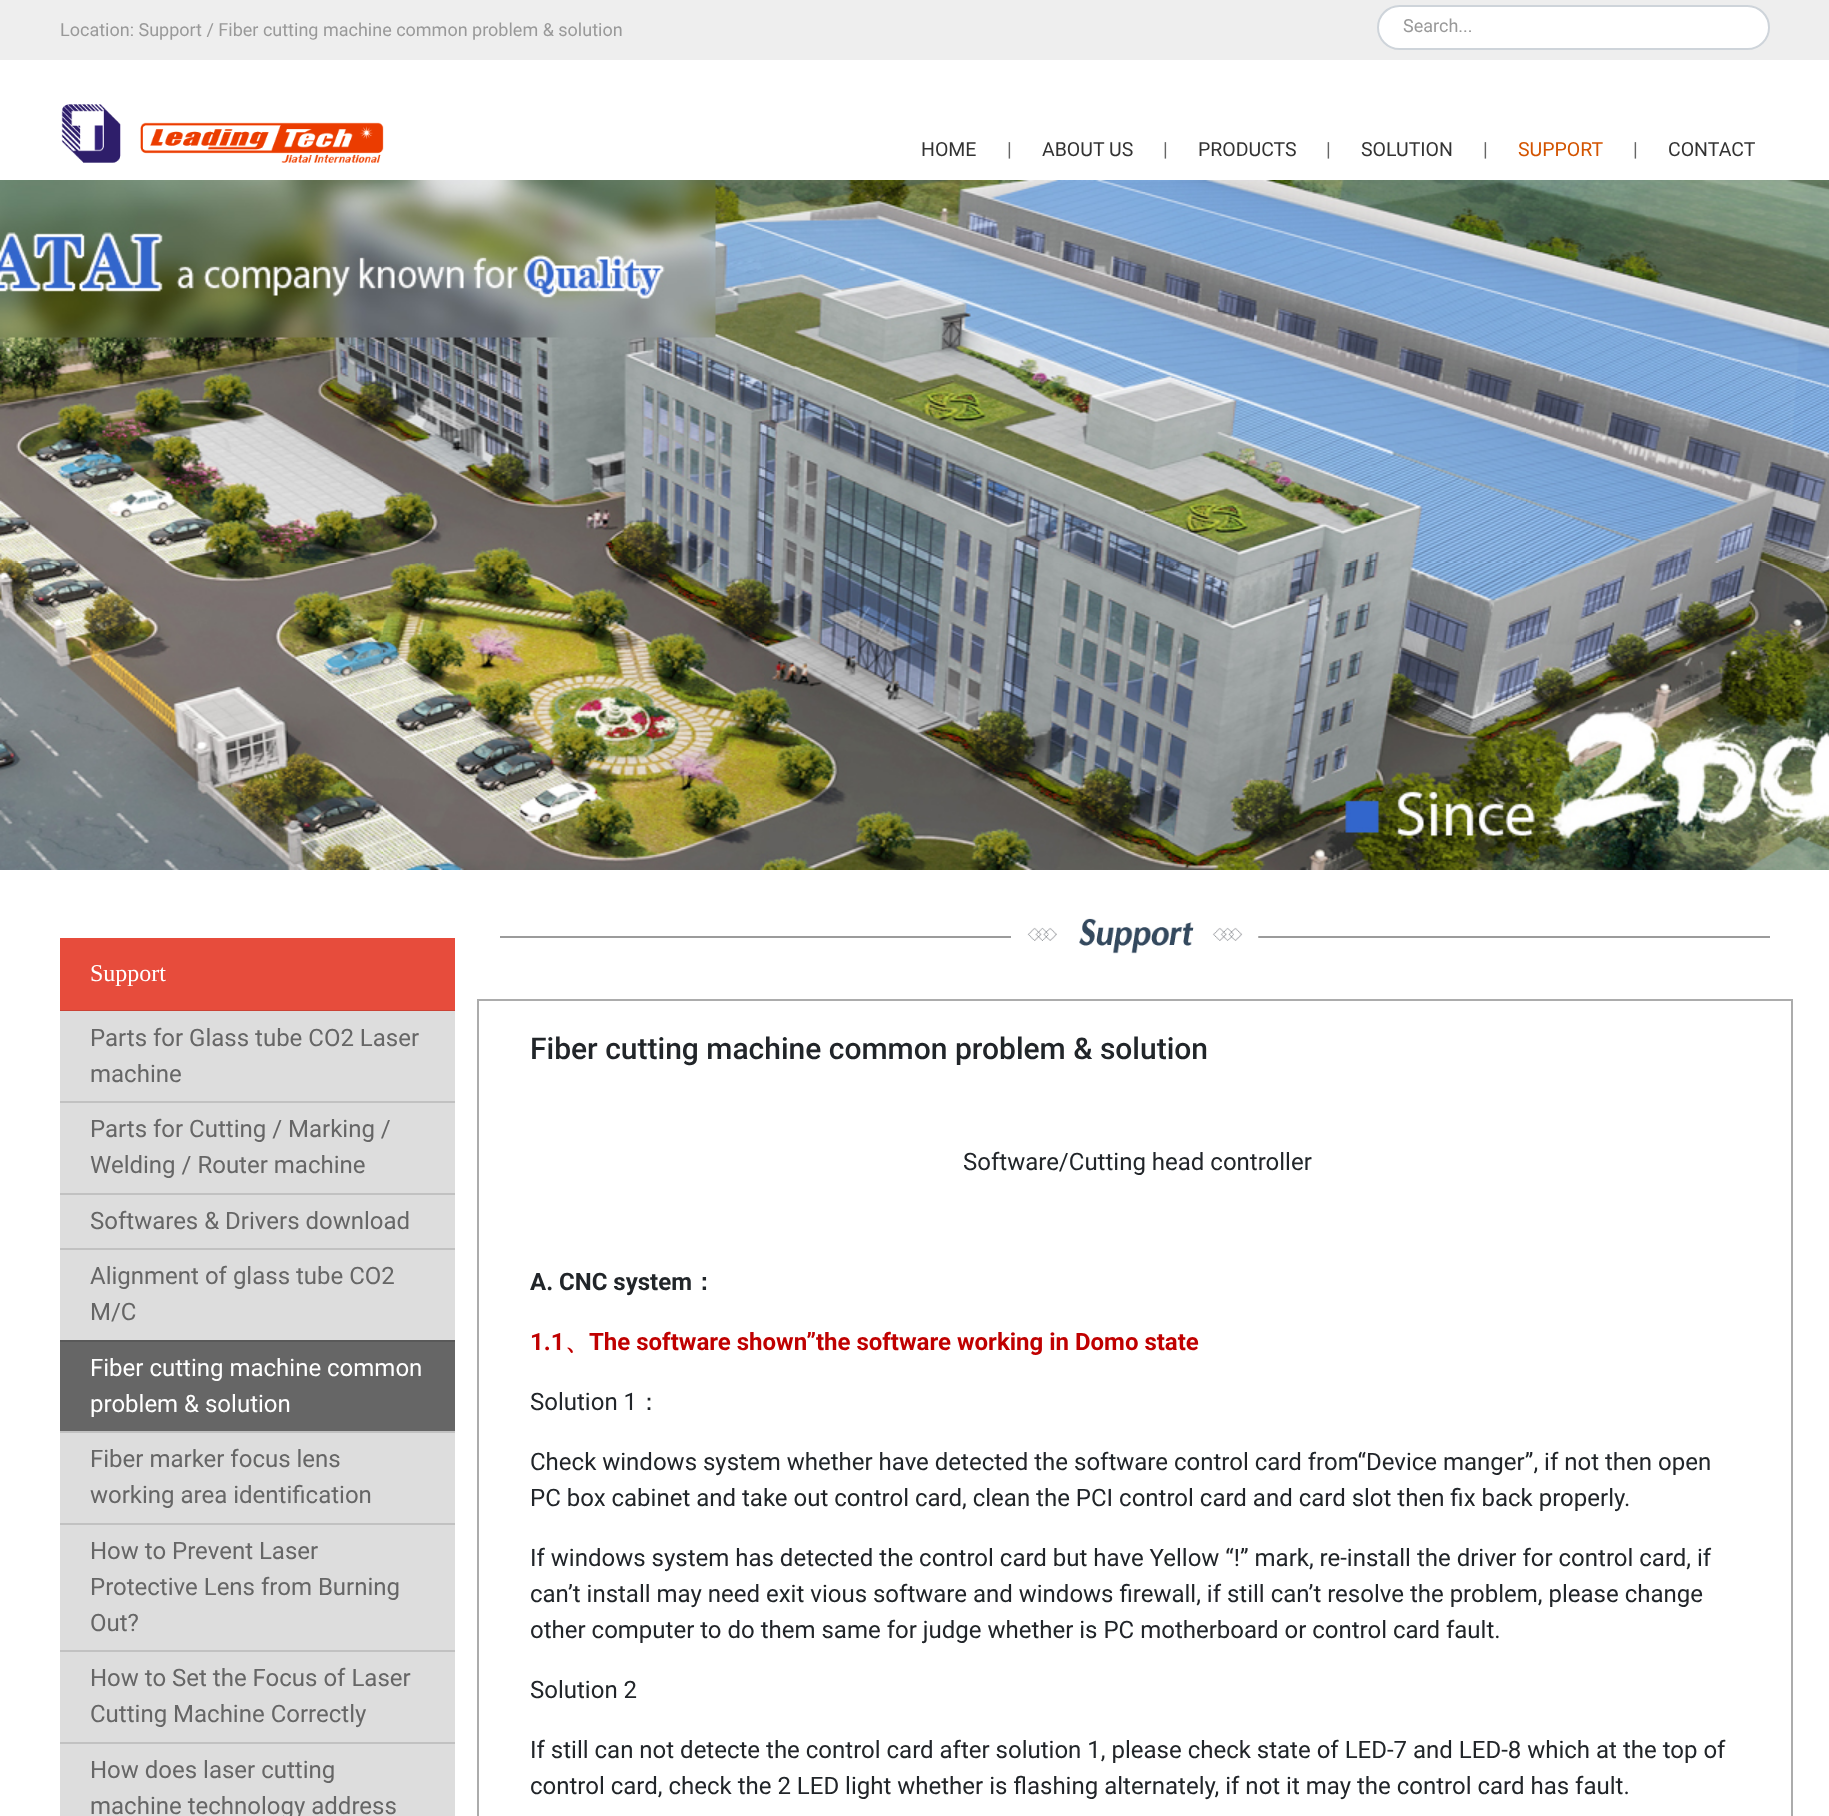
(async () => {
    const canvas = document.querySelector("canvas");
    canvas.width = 1829;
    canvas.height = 1816;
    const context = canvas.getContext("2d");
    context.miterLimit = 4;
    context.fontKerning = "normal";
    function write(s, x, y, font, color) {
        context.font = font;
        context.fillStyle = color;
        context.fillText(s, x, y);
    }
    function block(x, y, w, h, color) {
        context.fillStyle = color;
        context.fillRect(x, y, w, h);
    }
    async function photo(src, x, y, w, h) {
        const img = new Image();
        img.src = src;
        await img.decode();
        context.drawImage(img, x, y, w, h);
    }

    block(0, 0, 1829, 1816, "rgb(255, 255, 255)");
    block(0, 0, 1829, 60, "rgb(238, 238, 238)");
    write("Location: Support / Fiber cutting machine common problem & solution", 60, 36, "18px Roboto", "rgb(153, 153, 153)");
    context.fillStyle = "rgb(255, 255, 255)";
    context.beginPath();
    context.roundRect(1378, 6, 391, 43, 21.5);
    context.fill();
    context.strokeStyle = "rgb(206, 212, 218)";
    context.lineWidth = 2;
    context.stroke();
    write("Search...", 1403, 32, "18px Roboto", "rgb(153, 153, 153)");
    await photo("media/1.png", 61, 104, 323, 59);
    write("HOME", 921, 156, "19.5px Roboto", "rgb(51, 51, 51)");
    write("|", 1007, 156, "19.5px Roboto", "rgb(102, 102, 102)");
    write("ABOUT US", 1042, 156, "19.5px Roboto", "rgb(51, 51, 51)");
    write("|", 1163, 156, "19.5px Roboto", "rgb(102, 102, 102)");
    write("PRODUCTS", 1198, 156, "19.5px Roboto", "rgb(51, 51, 51)");
    write("|", 1326, 156, "19.5px Roboto", "rgb(102, 102, 102)");
    write("SOLUTION", 1361, 156, "19.5px Roboto", "rgb(51, 51, 51)");
    write("|", 1483, 156, "19.5px Roboto", "rgb(102, 102, 102)");
    write("SUPPORT", 1518, 156, "19.5px Roboto", "rgb(211, 84, 0)");
    write("|", 1633, 156, "19.5px Roboto", "rgb(102, 102, 102)");
    write("CONTACT", 1668, 156, "19.5px Roboto", "rgb(51, 51, 51)");
    await photo("media/2.png", 0, 180, 1829, 690);
    block(60, 938, 395, 72, "rgb(231, 76, 60)");
    block(60, 1010, 395, 1, "rgb(203, 67, 53)");
    write("Support", 90, 981, "24px Liberation Serif", "rgb(255, 255, 255)");
    block(60, 1011, 395, 90, "rgb(221, 221, 221)");
    write("Parts for Glass tube CO2 Laser", 90, 1046, "24px Roboto", "rgb(102, 102, 102)");
    write("machine", 90, 1082, "24px Roboto", "rgb(102, 102, 102)");
    block(60, 1103, 395, 90, "rgb(221, 221, 221)");
    block(60, 1101, 395, 2, "rgb(193, 193, 193)");
    write("Parts for Cutting / Marking /", 90, 1137, "24px Roboto", "rgb(102, 102, 102)");
    write("Welding / Router machine", 90, 1173, "24px Roboto", "rgb(102, 102, 102)");
    block(60, 1195, 395, 53, "rgb(221, 221, 221)");
    block(60, 1193, 395, 2, "rgb(193, 193, 193)");
    write("Softwares & Drivers download", 90, 1229, "24px Roboto", "rgb(102, 102, 102)");
    block(60, 1250, 395, 90, "rgb(221, 221, 221)");
    block(60, 1248, 395, 2, "rgb(193, 193, 193)");
    write("Alignment of glass tube CO2", 90, 1284, "24px Roboto", "rgb(102, 102, 102)");
    write("M/C", 90, 1320, "24px Roboto", "rgb(102, 102, 102)");
    block(60, 1342, 395, 89, "rgb(102, 102, 102)");
    block(60, 1340, 395, 2, "rgb(89, 89, 89)");
    write("Fiber cutting machine common", 90, 1376, "24px Roboto", "rgb(255, 255, 255)");
    write("problem & solution", 90, 1412, "24px Roboto", "rgb(255, 255, 255)");
    block(60, 1433, 395, 90, "rgb(221, 221, 221)");
    block(60, 1431, 395, 2, "rgb(193, 193, 193)");
    write("Fiber marker focus lens", 90, 1467, "24px Roboto", "rgb(102, 102, 102)");
    write("working area identification", 90, 1503, "24px Roboto", "rgb(102, 102, 102)");
    block(60, 1525, 395, 125, "rgb(221, 221, 221)");
    block(60, 1523, 395, 2, "rgb(193, 193, 193)");
    write("How to Prevent Laser", 90, 1559, "24px Roboto", "rgb(102, 102, 102)");
    write("Protective Lens from Burning", 90, 1595, "24px Roboto", "rgb(102, 102, 102)");
    write("Out?", 90, 1631, "24px Roboto", "rgb(102, 102, 102)");
    block(60, 1652, 395, 90, "rgb(221, 221, 221)");
    block(60, 1650, 395, 2, "rgb(193, 193, 193)");
    write("How to Set the Focus of Laser", 90, 1686, "24px Roboto", "rgb(102, 102, 102)");
    write("Cutting Machine Correctly", 90, 1722, "24px Roboto", "rgb(102, 102, 102)");
    block(60, 1744, 395, 72, "rgb(221, 221, 221)");
    block(60, 1742, 395, 2, "rgb(193, 193, 193)");
    write("How does laser cutting", 90, 1778, "24px Roboto", "rgb(102, 102, 102)");
    write("machine technology address", 90, 1814, "24px Roboto", "rgb(102, 102, 102)");
    block(500, 936, 1270, 2, "rgb(155, 155, 155)");
    await photo("media/3.png", 1011, 918, 248, 36);
    context.strokeStyle = "rgb(172, 172, 172)";
    context.strokeRect(478, 1000, 1314, 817);
    write("Fiber cutting machine common problem & solution", 530, 1059, "500 30px Roboto", "rgb(33, 37, 41)");
    write("Software/Cutting head controller", 963, 1170, "24px Roboto", "rgb(33, 37, 41)");
    write("A. CNC system", 530, 1290, "bold 24px Roboto", "rgb(33, 37, 41)");
    write("：", 692, 1290, "bold 24px WenQuanYi Zen Hei", "rgb(33, 37, 41)");
    write("1.1", 530, 1350, "bold 24px Roboto", "rgb(192, 0, 0)");
    write("、", 565, 1350, "bold 24px WenQuanYi Zen Hei", "rgb(192, 0, 0)");
    write("The software shown”the software working in Domo state", 589, 1350, "bold 24px Roboto", "rgb(192, 0, 0)");
    write("Solution 1", 530, 1410, "24px Roboto", "rgb(33, 37, 41)");
    write("：", 637, 1410, "500 24px WenQuanYi Zen Hei", "rgb(33, 37, 41)");
    write("Check windows system whether have detected the software control card from“Device manger”, if not then open", 530, 1470, "24px Roboto", "rgb(33, 37, 41)");
    write("PC box cabinet and take out control card, clean the PCI control card and card slot then fix back properly.", 530, 1506, "24px Roboto", "rgb(33, 37, 41)");
    write("If windows system has detected the control card but have Yellow “!” mark, re-install the driver for control card, if", 530, 1566, "24px Roboto", "rgb(33, 37, 41)");
    write("can’t install may need exit vious software and windows firewall, if still can’t resolve the problem, please change", 530, 1602, "24px Roboto", "rgb(33, 37, 41)");
    write("other computer to do them same for judge whether is PC motherboard or control card fault.", 530, 1638, "24px Roboto", "rgb(33, 37, 41)");
    write("Solution 2", 530, 1698, "24px Roboto", "rgb(33, 37, 41)");
    write("If still can not detecte the control card after solution 1, please check state of LED-7 and LED-8 which at the top of", 530, 1758, "24px Roboto", "rgb(33, 37, 41)");
    write("control card, check the 2 LED light whether is flashing alternately, if not it may the control card has fault.", 530, 1794, "24px Roboto", "rgb(33, 37, 41)");
})();
